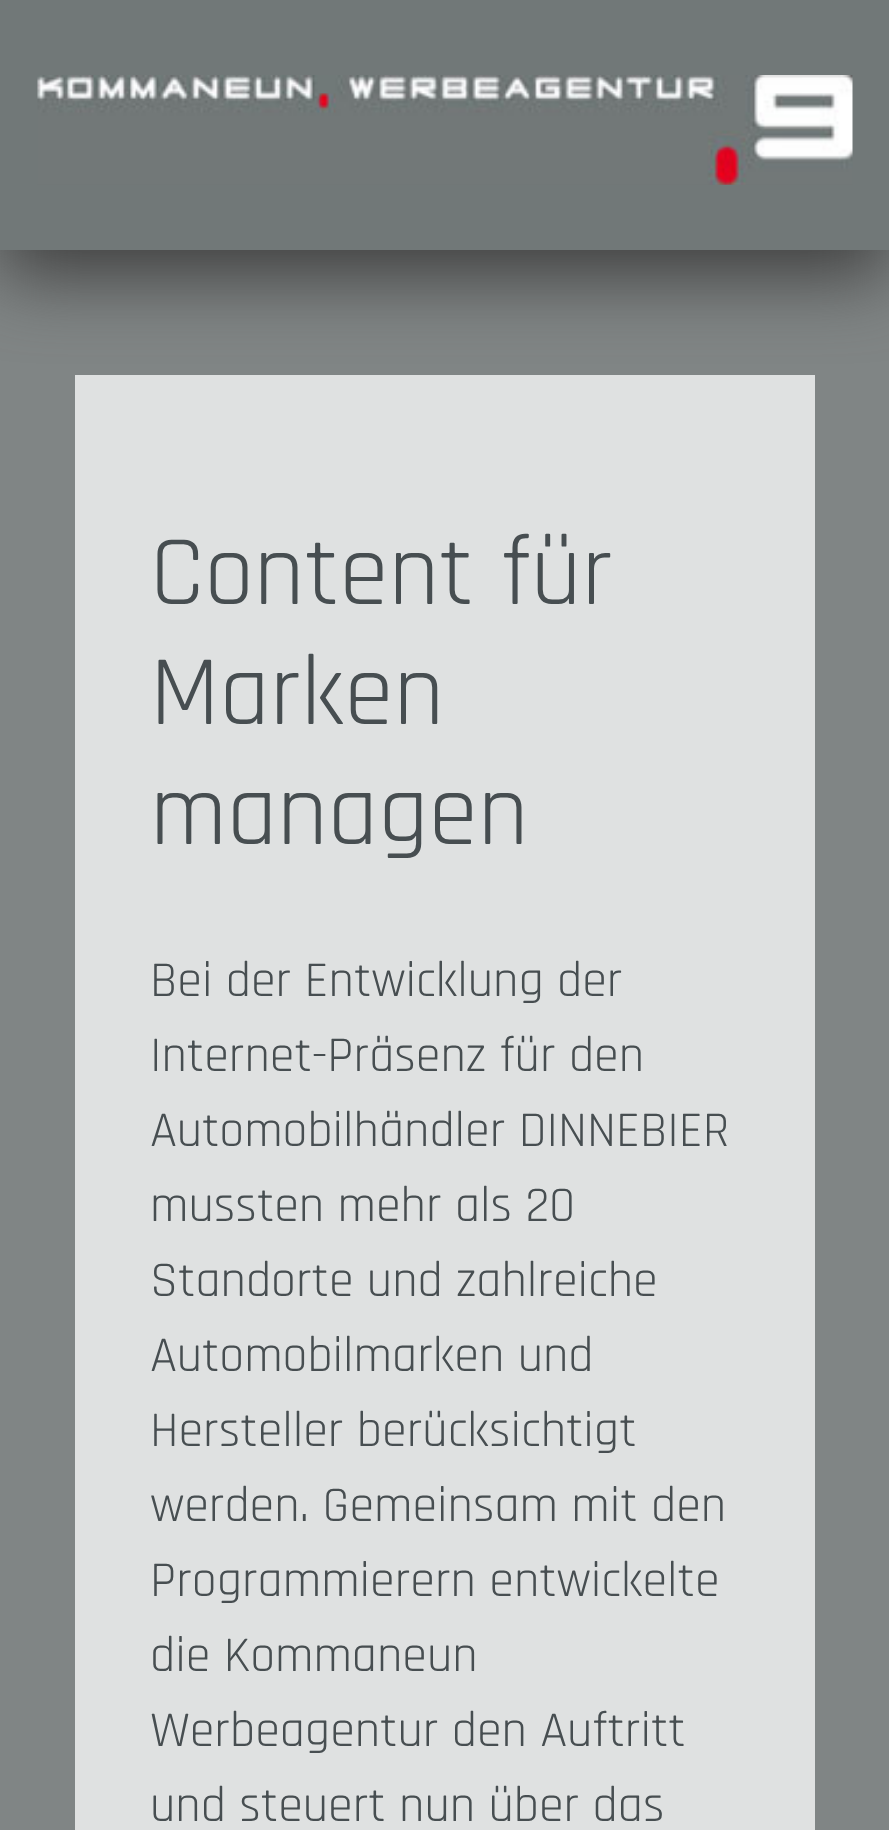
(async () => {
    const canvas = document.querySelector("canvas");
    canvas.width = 889;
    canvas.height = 1830;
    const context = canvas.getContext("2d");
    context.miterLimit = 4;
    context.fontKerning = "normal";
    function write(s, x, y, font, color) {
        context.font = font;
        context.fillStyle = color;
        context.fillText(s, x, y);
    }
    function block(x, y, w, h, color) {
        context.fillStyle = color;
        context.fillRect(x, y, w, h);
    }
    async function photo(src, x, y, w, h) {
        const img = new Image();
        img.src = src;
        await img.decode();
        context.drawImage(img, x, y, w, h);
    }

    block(0, 0, 889, 1830, "rgb(128, 133, 133)");
    block(75, 375, 740, 1455, "rgb(223, 225, 225)");
    context.fillStyle = "rgb(61, 61, 61)";
    context.filter = "blur(37.5px)";
    context.beginPath();
    context.rect(0, 25, 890, 250);
    context.fill();
    context.filter = "none";
    block(0, 0, 889, 250, "rgb(113, 120, 120)");
    await photo("media/1.png", 37, 75, 816, 110);
    write("Content für", 150, 604, "100px Rajdhani", "rgb(71, 78, 81)");
    write("Marken", 150, 724, "100px Rajdhani", "rgb(71, 78, 81)");
    write("managen", 150, 844, "100px Rajdhani", "rgb(71, 78, 81)");
    write("Bei der Entwicklung der", 150, 996, "50px Rajdhani", "rgb(71, 78, 81)");
    write("Internet-Präsenz für den", 150, 1071, "50px Rajdhani", "rgb(71, 78, 81)");
    write("Automobilhändler DINNEBIER", 150, 1146, "50px Rajdhani", "rgb(71, 78, 81)");
    write("mussten mehr als 20", 150, 1221, "50px Rajdhani", "rgb(71, 78, 81)");
    write("Standorte und zahlreiche", 150, 1296, "50px Rajdhani", "rgb(71, 78, 81)");
    write("Automobilmarken und", 150, 1371, "50px Rajdhani", "rgb(71, 78, 81)");
    write("Hersteller berücksichtigt", 150, 1446, "50px Rajdhani", "rgb(71, 78, 81)");
    write("werden. Gemeinsam mit den", 150, 1521, "50px Rajdhani", "rgb(71, 78, 81)");
    write("Programmierern entwickelte", 150, 1596, "50px Rajdhani", "rgb(71, 78, 81)");
    write("die Kommaneun", 150, 1671, "50px Rajdhani", "rgb(71, 78, 81)");
    write("Werbeagentur den Auftritt", 150, 1746, "50px Rajdhani", "rgb(71, 78, 81)");
    write("und steuert nun über das", 150, 1821, "50px Rajdhani", "rgb(71, 78, 81)");
})();
